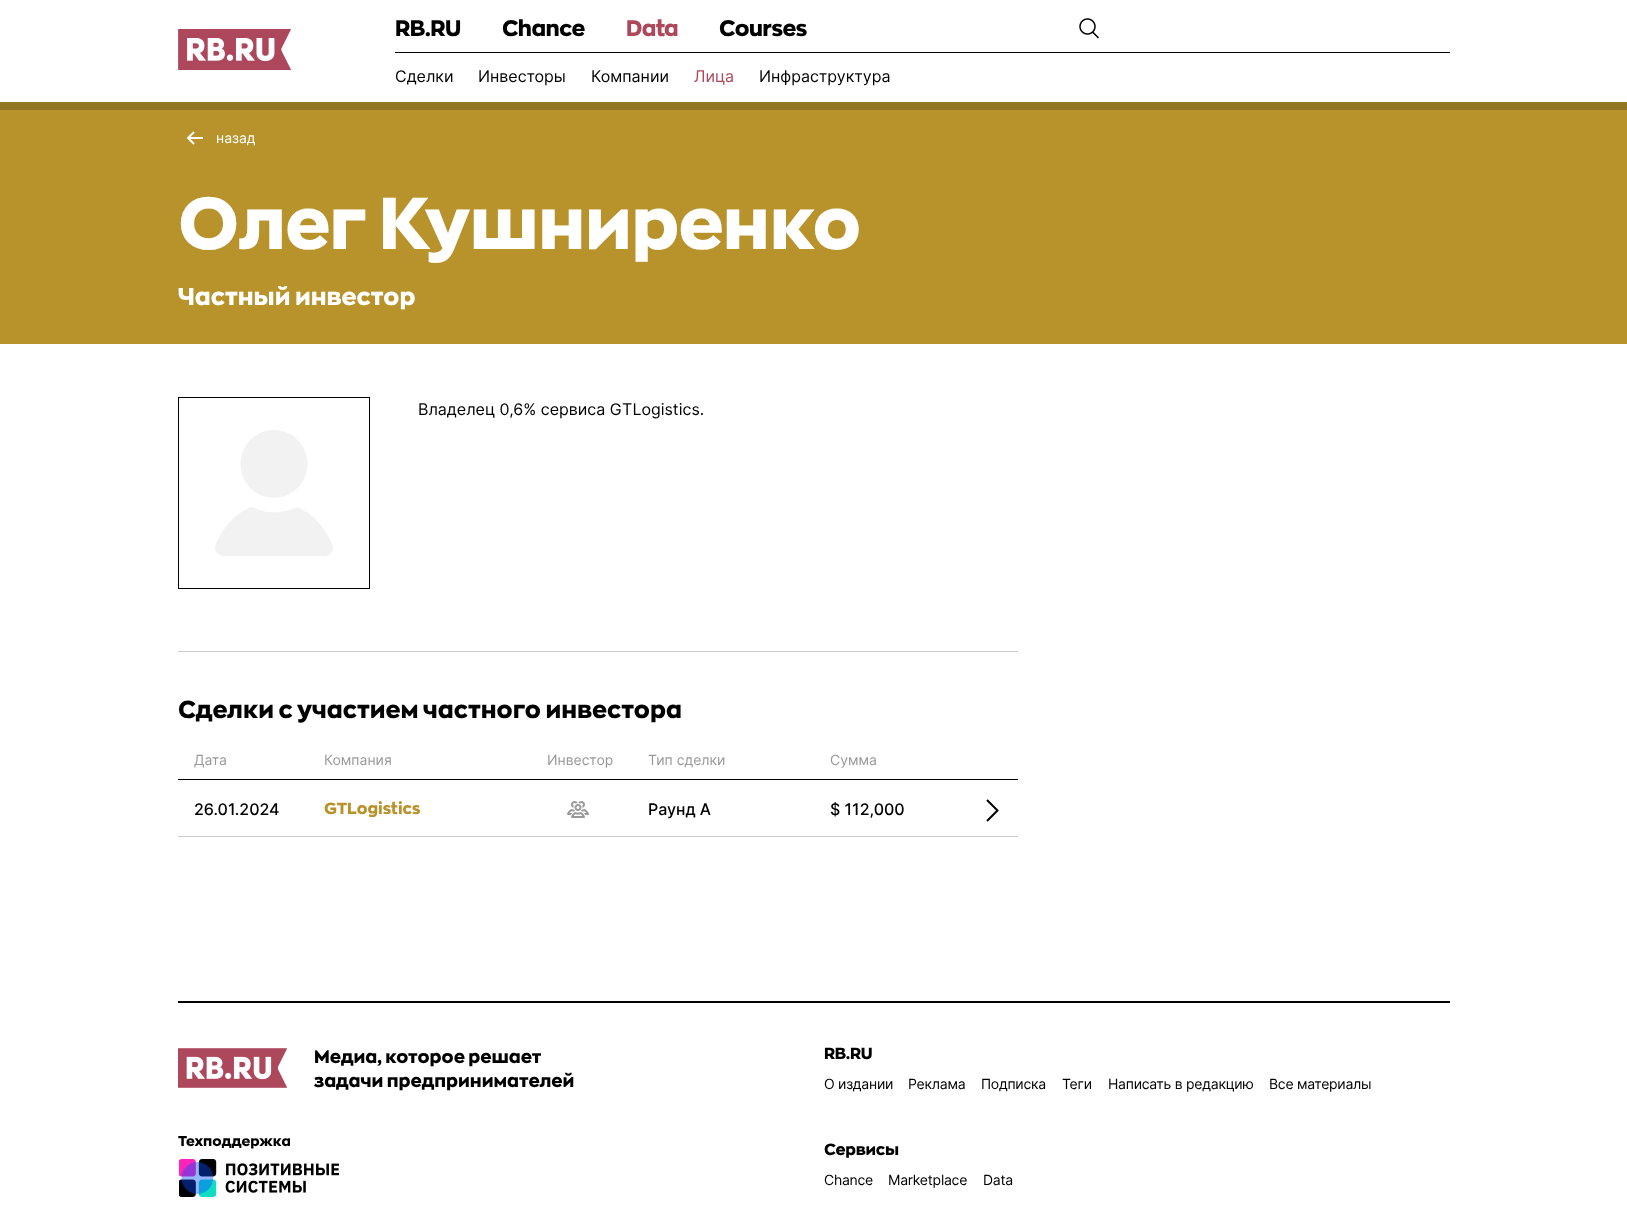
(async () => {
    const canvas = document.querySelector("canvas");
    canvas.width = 1627;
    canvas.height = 1221;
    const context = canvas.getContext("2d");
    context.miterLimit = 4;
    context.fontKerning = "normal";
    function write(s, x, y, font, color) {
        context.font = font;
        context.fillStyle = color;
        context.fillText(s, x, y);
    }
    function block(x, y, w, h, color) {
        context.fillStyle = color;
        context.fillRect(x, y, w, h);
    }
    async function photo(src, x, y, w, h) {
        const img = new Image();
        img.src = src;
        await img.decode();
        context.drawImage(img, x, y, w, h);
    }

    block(0, 0, 1627, 1221, "rgb(255, 255, 255)");
    await photo("media/1.png", 178, 29, 113, 41);
    block(395, 52, 1055, 1, "rgb(0, 0, 0)");
    context.letterSpacing = "-0.5px";
    write("RB.RU", 395, 36, "800 22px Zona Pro", "rgb(0, 0, 0)");
    write("Chance", 502, 36, "800 22px Zona Pro", "rgb(0, 0, 0)");
    write("Data", 626, 36, "800 22px Zona Pro", "rgb(173, 71, 92)");
    write("Courses", 719, 36, "800 22px Zona Pro", "rgb(0, 0, 0)");
    await photo("media/2.png", 1079, 18, 20, 21);
    context.letterSpacing = "0px";
    write("Сделки", 395, 82, "16px Inter", "rgb(0, 0, 0)");
    write("Инвесторы", 478, 82, "16px Inter", "rgb(0, 0, 0)");
    write("Компании", 591, 82, "16px Inter", "rgb(0, 0, 0)");
    write("Лица", 694, 82, "16px Inter", "rgb(173, 71, 92)");
    write("Инфраструктура", 759, 82, "16px Inter", "rgb(0, 0, 0)");
    block(0, 102, 1627, 8, "rgb(147, 118, 34)");
    block(0, 110, 1627, 234, "rgb(184, 147, 43)");
    await photo("media/3.png", 186, 131, 17, 14);
    write("назад", 216, 143, "14px Inter", "rgb(255, 255, 255)");
    context.letterSpacing = "-0.75px";
    write("Олег Кушниренко", 178, 249, "800 72px Zona Pro", "rgb(255, 255, 255)");
    context.letterSpacing = "0px";
    write("Частный инвестор", 178, 305, "800 24px Zona Pro", "rgb(255, 255, 255)");
    await photo("media/4.png", 178, 397, 192, 192);
    write("Владелец 0,6% сервиса GTLogistics.", 418, 415, "16px Inter", "rgb(0, 0, 0)");
    block(178, 651, 840, 1, "rgb(204, 204, 204)");
    write("Сделки с участием частного инвестора", 178, 718, "800 24px Zona Pro", "rgb(0, 0, 0)");
    write("Дата", 194, 765, "14px Inter", "rgb(153, 153, 153)");
    write("Компания", 324, 765, "14px Inter", "rgb(153, 153, 153)");
    write("Инвестор", 547, 765, "14px Inter", "rgb(153, 153, 153)");
    write("Тип сделки", 648, 765, "14px Inter", "rgb(153, 153, 153)");
    write("Сумма", 830, 765, "14px Inter", "rgb(153, 153, 153)");
    block(178, 779, 840, 1, "rgb(0, 0, 0)");
    write("26.01.2024", 194, 815, "500 16px Inter", "rgb(0, 0, 0)");
    write("GTLogistics", 324, 814, "800 16px Zona Pro", "rgb(184, 147, 43)");
    await photo("media/5.png", 567, 801, 22, 17);
    write("Раунд А", 648, 815, "500 16px Inter", "rgb(0, 0, 0)");
    write("$ 112,000", 830, 815, "500 16px Inter", "rgb(0, 0, 0)");
    context.beginPath();
    context.moveTo(987, 800);
    context.lineTo(997.5, 810.5);
    context.lineTo(987, 821);
    context.strokeStyle = "rgb(0, 0, 0)";
    context.lineWidth = 2;
    context.stroke();
    block(178, 836, 840, 1, "rgb(204, 204, 204)");
    block(178, 1001, 1272, 2, "rgb(0, 0, 0)");
    await photo("media/6.png", 178, 1048, 109, 40);
    write("Медиа, которое решает", 314, 1063, "800 18px Zona Pro", "rgb(0, 0, 0)");
    write("задачи предпринимателей", 314, 1087, "800 18px Zona Pro", "rgb(0, 0, 0)");
    context.letterSpacing = "0.1px";
    write("Техподдержка", 178, 1146, "800 14px Zona Pro", "rgb(0, 0, 0)");
    await photo("media/7.png", 179, 1159, 160, 38);
    context.letterSpacing = "-0.25px";
    write("RB.RU", 824, 1059, "800 16px Zona Pro", "rgb(0, 0, 0)");
    write("О издании", 824, 1089, "14px Inter", "rgb(0, 0, 0)");
    write("Реклама", 908, 1089, "14px Inter", "rgb(0, 0, 0)");
    write("Подписка", 981, 1089, "14px Inter", "rgb(0, 0, 0)");
    write("Теги", 1062, 1089, "14px Inter", "rgb(0, 0, 0)");
    write("Написать в редакцию", 1108, 1089, "14px Inter", "rgb(0, 0, 0)");
    write("Все материалы", 1269, 1089, "14px Inter", "rgb(0, 0, 0)");
    write("Сервисы", 824, 1155, "800 16px Zona Pro", "rgb(0, 0, 0)");
    write("Chance", 824, 1185, "14px Inter", "rgb(0, 0, 0)");
    write("Marketplace", 888, 1185, "14px Inter", "rgb(0, 0, 0)");
    write("Data", 983, 1185, "14px Inter", "rgb(0, 0, 0)");
})();
